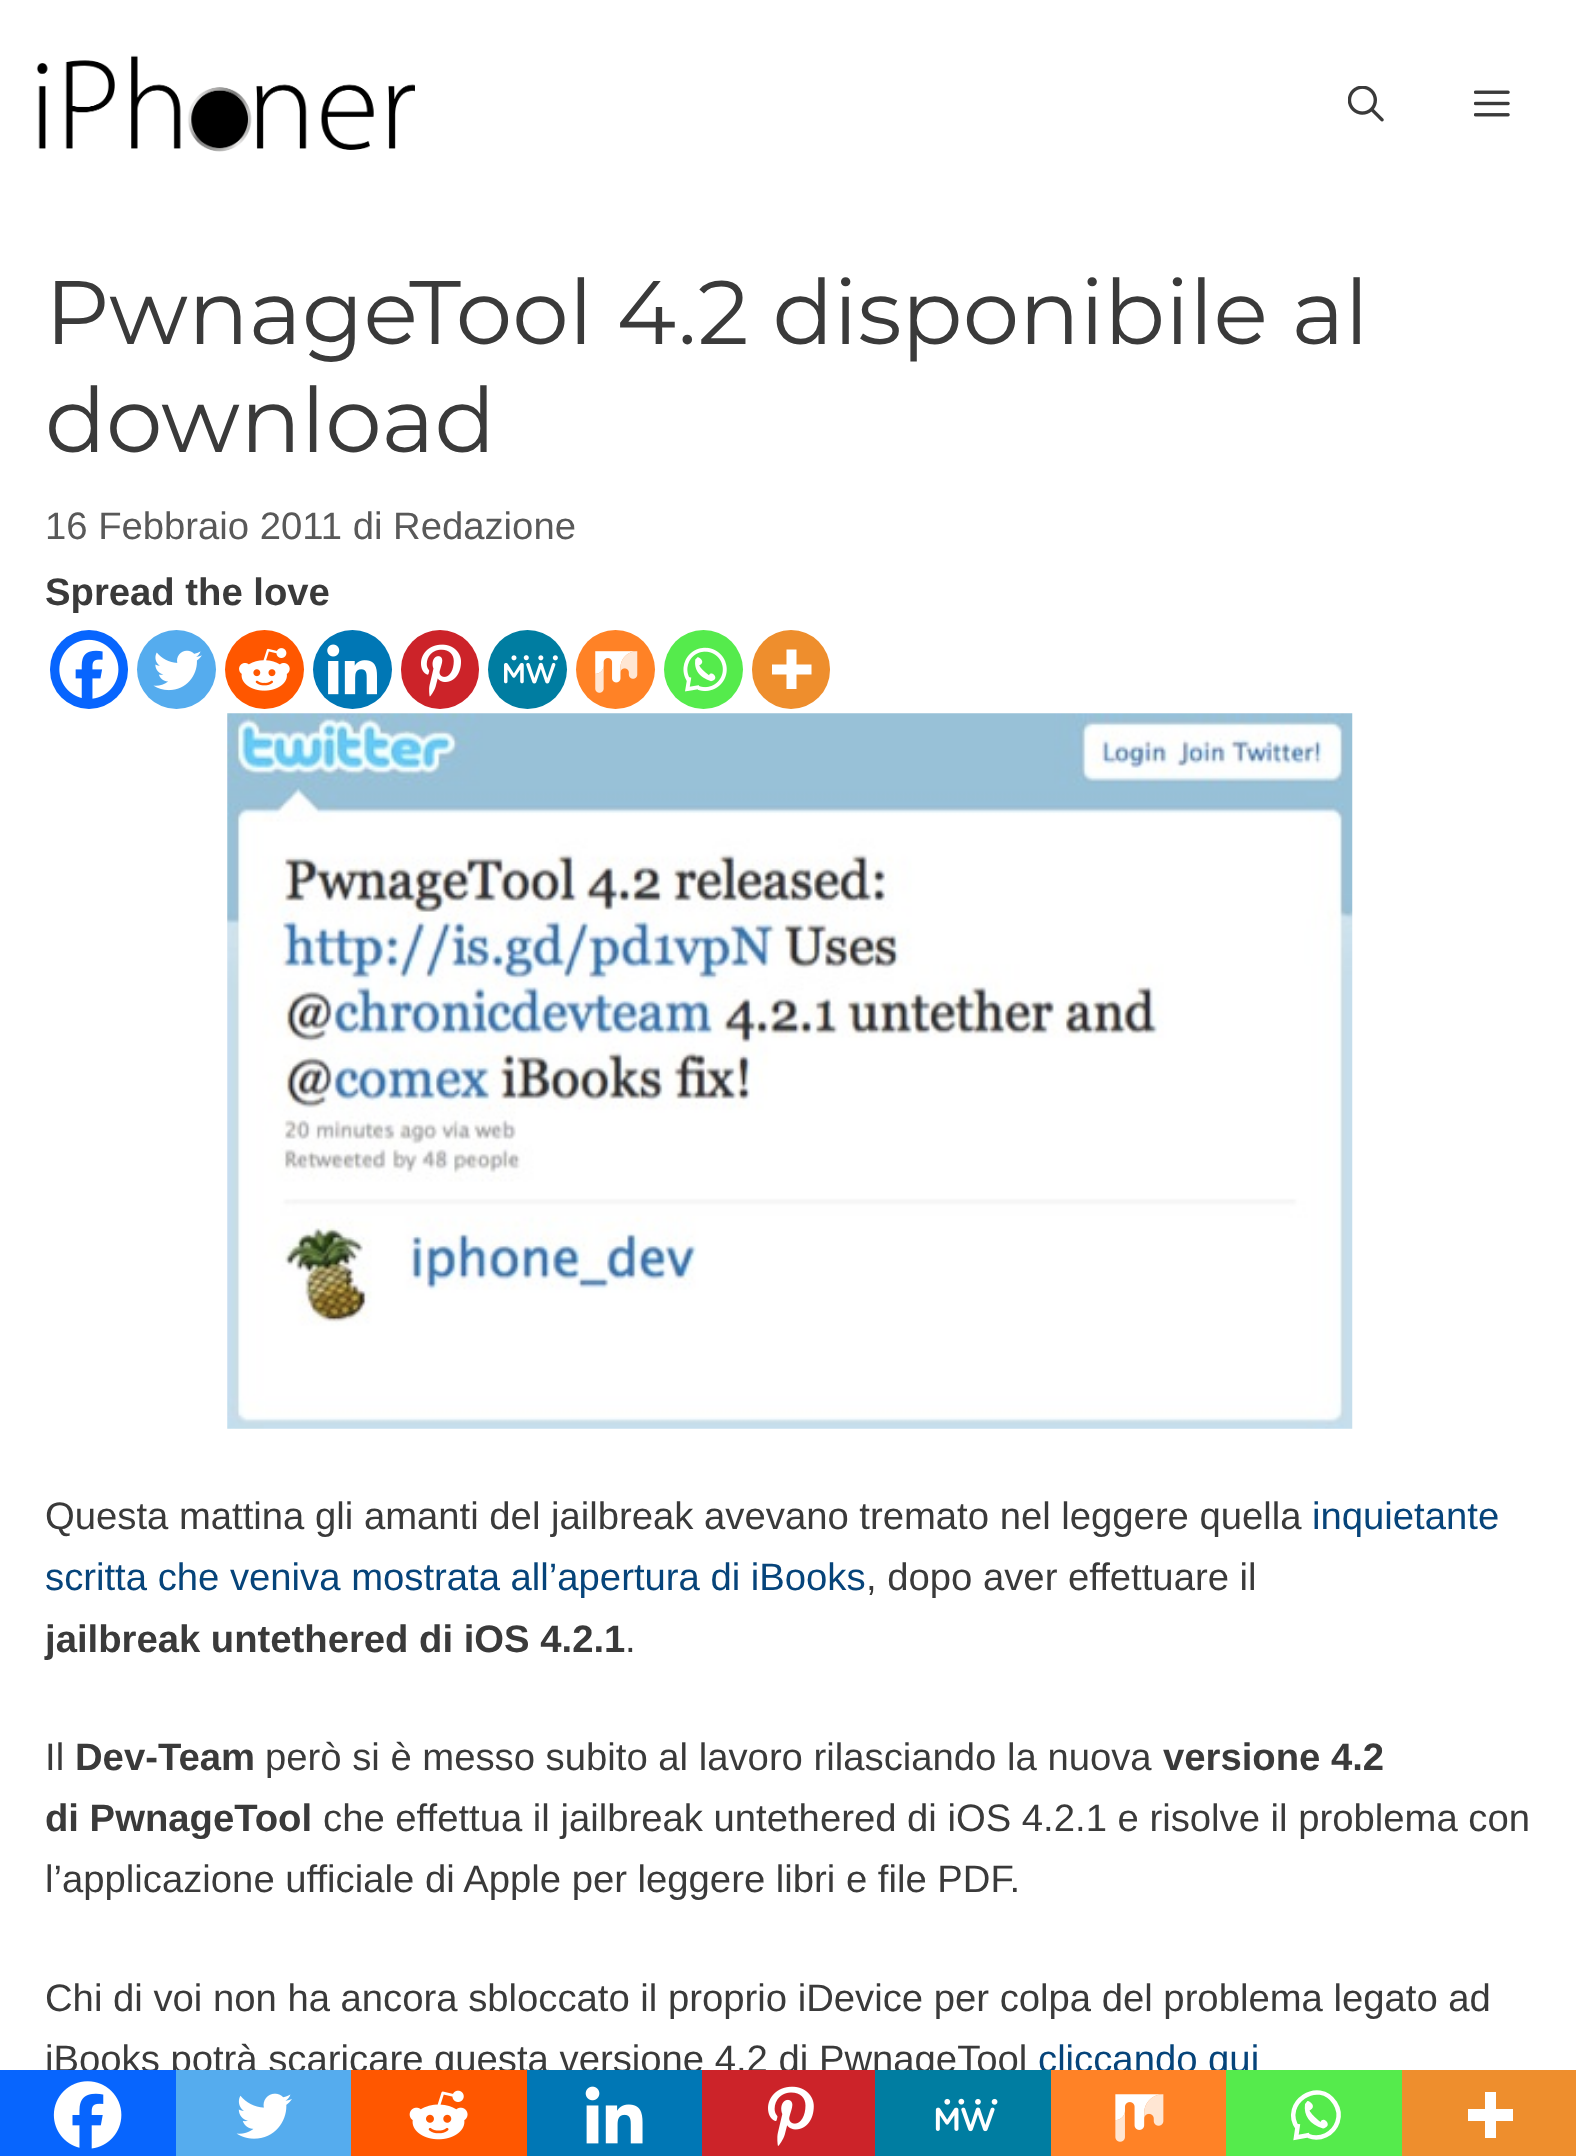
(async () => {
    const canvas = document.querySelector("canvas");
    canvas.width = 1576;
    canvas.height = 2156;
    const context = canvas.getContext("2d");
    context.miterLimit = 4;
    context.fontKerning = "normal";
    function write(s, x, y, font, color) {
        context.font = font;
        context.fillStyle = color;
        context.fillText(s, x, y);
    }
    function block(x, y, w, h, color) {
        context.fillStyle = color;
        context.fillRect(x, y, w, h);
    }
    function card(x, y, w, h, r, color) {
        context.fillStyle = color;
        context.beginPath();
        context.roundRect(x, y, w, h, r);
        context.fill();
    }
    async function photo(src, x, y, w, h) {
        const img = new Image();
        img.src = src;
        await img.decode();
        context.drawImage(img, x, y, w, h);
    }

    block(0, 0, 1576, 2156, "rgb(255, 255, 255)");
    await photo("media/1.png", 36, 55, 379, 97);
    await photo("media/2.png", 1348, 86, 36, 36);
    await photo("media/3.png", 1474, 90, 36, 27);
    write("PwnageTool 4.2 disponibile al", 45, 344, "90px Montserrat", "rgb(58, 58, 58)");
    write("download", 45, 452, "90px Montserrat", "rgb(58, 58, 58)");
    write("16 Febbraio 2011 di Redazione", 45, 539, "38.25px Liberation Sans", "rgb(89, 89, 89)");
    write("Spread the love", 45, 605, "bold 38.25px Liberation Sans", "rgb(58, 58, 58)");
    card(50, 630, 78, 79, 39, "rgb(7, 101, 254)");
    await photo("media/4.png", 59, 639, 60, 60);
    context.fillStyle = "rgb(85, 172, 238)";
    context.beginPath();
    context.arc(176.5, 669.5, 39.5, 0, Math.PI * 2);
    context.fill();
    await photo("media/5.png", 153, 650, 49, 41);
    context.fillStyle = "rgb(255, 87, 0)";
    context.beginPath();
    context.arc(264.5, 669.5, 39.5, 0, Math.PI * 2);
    context.fill();
    await photo("media/6.png", 239, 648, 51, 43);
    context.fillStyle = "rgb(0, 119, 181)";
    context.beginPath();
    context.arc(352.5, 669.5, 39.5, 0, Math.PI * 2);
    context.fill();
    await photo("media/7.png", 327, 644, 50, 51);
    card(401, 630, 78, 79, 39, "rgb(204, 35, 41)");
    await photo("media/8.png", 421, 644, 40, 53);
    context.fillStyle = "rgb(0, 125, 161)";
    context.beginPath();
    context.arc(527.5, 669.5, 39.5, 0, Math.PI * 2);
    context.fill();
    await photo("media/9.png", 504, 655, 54, 29);
    context.fillStyle = "rgb(255, 130, 38)";
    context.beginPath();
    context.arc(615.5, 669.5, 39.5, 0, Math.PI * 2);
    context.fill();
    await photo("media/10.png", 595, 651, 43, 42);
    context.fillStyle = "rgb(85, 235, 76)";
    context.beginPath();
    context.arc(703.5, 669.5, 39.5, 0, Math.PI * 2);
    context.fill();
    await photo("media/11.png", 683, 647, 44, 45);
    card(752, 630, 78, 79, 39, "rgb(238, 142, 45)");
    context.fillStyle = "rgb(255, 255, 255)";
    context.beginPath();
    context.moveTo(796.5, 664.5);
    context.lineTo(796.5, 649.5);
    context.lineTo(786.5, 649.5);
    context.lineTo(786.5, 664.5);
    context.lineTo(772, 664.5);
    context.lineTo(772, 674.5);
    context.lineTo(786.5, 674.5);
    context.lineTo(786.5, 689);
    context.lineTo(796.5, 689);
    context.lineTo(796.5, 674.5);
    context.lineTo(811.5, 674.5);
    context.lineTo(811.5, 664.5);
    context.closePath();
    context.fill("evenodd");
    await photo("media/12.png", 227, 713, 1126, 716);
    write("Questa mattina gli amanti del jailbreak avevano tremato nel leggere quella", 45, 1529, "38.25px Liberation Sans", "rgb(58, 58, 58)");
    write("inquietante", 1312, 1529, "38.25px Liberation Sans", "rgb(6, 68, 122)");
    write("scritta che veniva mostrata all’apertura di iBooks", 45, 1590, "38.25px Liberation Sans", "rgb(6, 68, 122)");
    write(", dopo aver effettuare il", 866, 1590, "38.25px Liberation Sans", "rgb(58, 58, 58)");
    write("jailbreak untethered di iOS 4.2.1", 45, 1652, "bold 38.25px Liberation Sans", "rgb(58, 58, 58)");
    write(".", 625, 1652, "38.25px Liberation Sans", "rgb(58, 58, 58)");
    write("Il", 45, 1770, "38.25px Liberation Sans", "rgb(58, 58, 58)");
    write("Dev-Team", 75, 1770, "bold 38.25px Liberation Sans", "rgb(58, 58, 58)");
    write("però si è messo subito al lavoro rilasciando la nuova", 265, 1770, "38.25px Liberation Sans", "rgb(58, 58, 58)");
    write("versione 4.2", 1163, 1770, "bold 38.25px Liberation Sans", "rgb(58, 58, 58)");
    write("di PwnageTool", 45, 1831, "bold 38.25px Liberation Sans", "rgb(58, 58, 58)");
    write("che effettua il jailbreak untethered di iOS 4.2.1 e risolve il problema con", 323, 1831, "38.25px Liberation Sans", "rgb(58, 58, 58)");
    write("l’applicazione ufficiale di Apple per leggere libri e file PDF.", 45, 1892, "38.25px Liberation Sans", "rgb(58, 58, 58)");
    write("Chi di voi non ha ancora sbloccato il proprio iDevice per colpa del problema legato ad", 45, 2011, "38.25px Liberation Sans", "rgb(58, 58, 58)");
    write("iBooks potrà scaricare questa versione 4.2 di PwnageTool", 45, 2072, "38.25px Liberation Sans", "rgb(58, 58, 58)");
    write("cliccando qui", 1038, 2072, "38.25px Liberation Sans", "rgb(6, 68, 122)");
    block(0, 2070, 176, 86, "rgb(7, 101, 254)");
    await photo("media/13.png", 53, 2081, 69, 68);
    block(176, 2070, 175, 86, "rgb(85, 172, 238)");
    await photo("media/14.png", 236, 2093, 56, 46);
    block(351, 2070, 176, 86, "rgb(255, 87, 0)");
    await photo("media/15.png", 409, 2090, 59, 50);
    block(527, 2070, 175, 86, "rgb(0, 119, 181)");
    await photo("media/16.png", 585, 2086, 58, 58);
    block(702, 2070, 173, 86, "rgb(204, 35, 41)");
    await photo("media/17.png", 768, 2086, 46, 60);
    block(875, 2070, 176, 86, "rgb(0, 125, 161)");
    await photo("media/18.png", 935, 2098, 63, 34);
    block(1051, 2070, 175, 86, "rgb(255, 130, 38)");
    await photo("media/19.png", 1115, 2094, 49, 48);
    block(1226, 2070, 176, 86, "rgb(85, 235, 76)");
    context.beginPath();
    context.moveTo(1308.5, 2136);
    context.bezierCurveTo(1320, 2140.5, 1333.5, 2134, 1337.5, 2122);
    context.bezierCurveTo(1339.5, 2116, 1338.5, 2108.5, 1335, 2103);
    context.bezierCurveTo(1319, 2077.5, 1280.5, 2103, 1297.5, 2128);
    context.moveTo(1298, 2124);
    context.lineTo(1296, 2137.5);
    context.lineTo(1309.5, 2135);
    context.strokeStyle = "rgb(255, 255, 255)";
    context.lineWidth = 4.5;
    context.stroke();
    context.fillStyle = "rgb(255, 255, 255)";
    context.beginPath();
    context.moveTo(1305, 2104);
    context.bezierCurveTo(1303.5, 2116, 1309.5, 2124, 1323, 2128.5);
    context.bezierCurveTo(1334, 2126, 1323, 2115, 1320.5, 2122);
    context.bezierCurveTo(1314.5, 2117, 1311, 2113.5, 1309.5, 2110.5);
    context.bezierCurveTo(1318.5, 2106, 1307, 2099, 1307, 2101.5);
    context.fill();
    block(1402, 2070, 174, 86, "rgb(238, 142, 45)");
    context.fillStyle = "rgb(255, 255, 255)";
    context.beginPath();
    context.moveTo(1496, 2109);
    context.lineTo(1496, 2092);
    context.lineTo(1485, 2092);
    context.lineTo(1485, 2109);
    context.lineTo(1468, 2109);
    context.lineTo(1468, 2121);
    context.lineTo(1485, 2121);
    context.lineTo(1485, 2138);
    context.lineTo(1496, 2138);
    context.lineTo(1496, 2121);
    context.lineTo(1513, 2121);
    context.lineTo(1513, 2109);
    context.closePath();
    context.fill("evenodd");
})();
